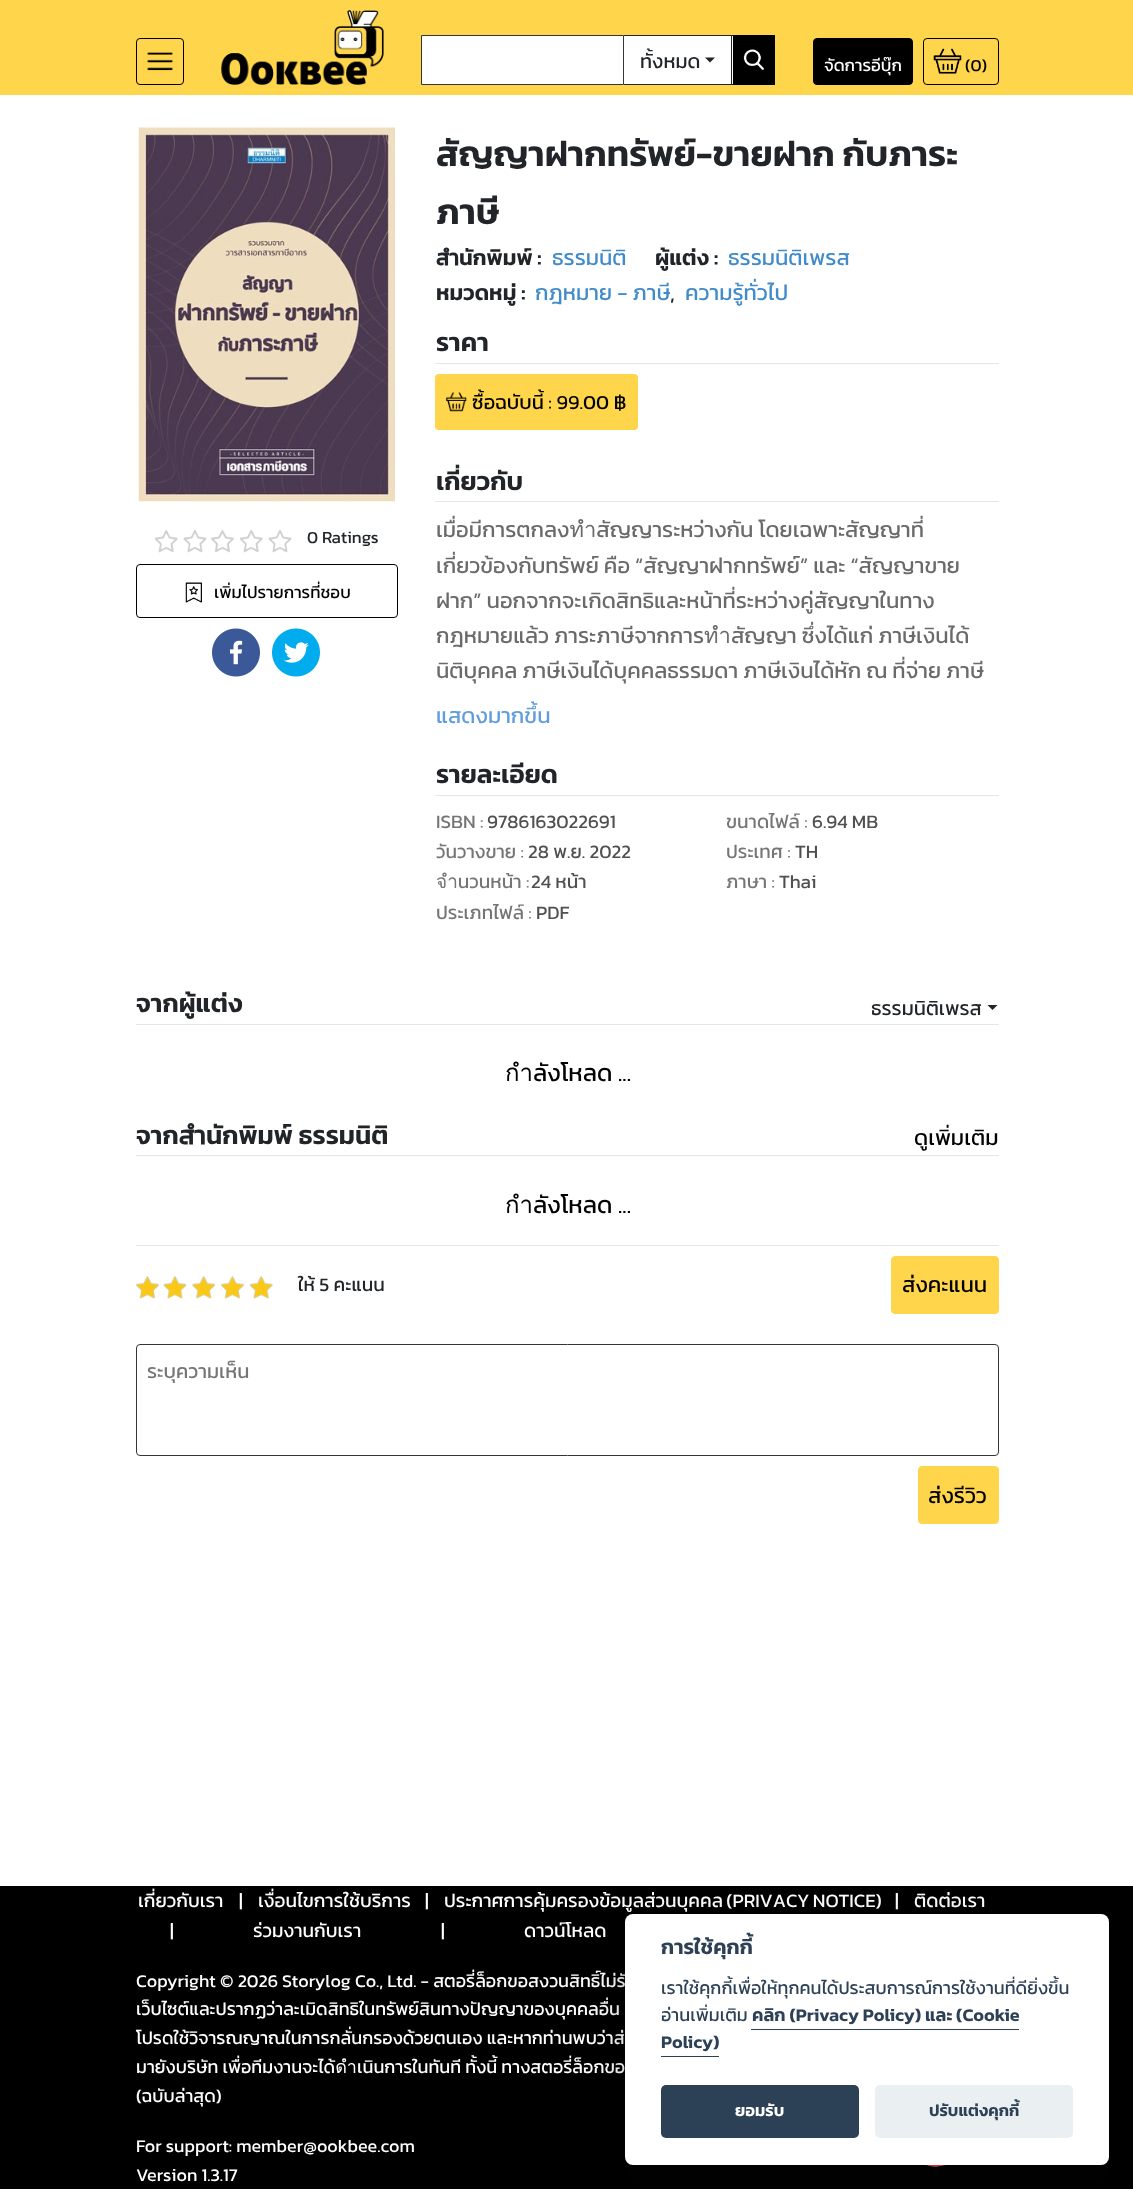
(async () => {
    const canvas = document.querySelector("canvas");
    canvas.width = 1133;
    canvas.height = 2189;
    const context = canvas.getContext("2d");
    context.miterLimit = 4;
    context.fontKerning = "normal";
    function write(s, x, y, font, color) {
        context.font = font;
        context.fillStyle = color;
        context.fillText(s, x, y);
    }
    function block(x, y, w, h, color) {
        context.fillStyle = color;
        context.fillRect(x, y, w, h);
    }
    function card(x, y, w, h, r, color) {
        context.fillStyle = color;
        context.beginPath();
        context.roundRect(x, y, w, h, r);
        context.fill();
    }
    async function photo(src, x, y, w, h) {
        const img = new Image();
        img.src = src;
        await img.decode();
        context.drawImage(img, x, y, w, h);
    }

    block(0, 0, 1133, 2189, "rgb(255, 255, 255)");
    block(0, 0, 1133, 95, "rgb(255, 213, 76)");
    context.beginPath();
    context.roundRect(136.5, 38.5, 47, 46, 3.5);
    context.strokeStyle = "rgb(0, 0, 0)";
    context.stroke();
    await photo("media/1.png", 147, 52, 26, 19);
    await photo("media/2.png", 221, 10, 163, 75);
    context.fillStyle = "rgb(255, 255, 255)";
    context.beginPath();
    context.rect(421.5, 35.5, 202, 49);
    context.fill();
    context.strokeStyle = "rgb(54, 54, 54)";
    context.stroke();
    block(624, 36, 109, 48, "rgb(255, 255, 255)");
    block(624, 35, 109, 1, "rgb(33, 37, 41)");
    block(731, 35, 1, 50, "rgb(33, 37, 41)");
    block(624, 84, 109, 1, "rgb(33, 37, 41)");
    write("ทั้งหมด", 640, 68, "20px Kanit", "rgb(33, 37, 41)");
    context.beginPath();
    context.moveTo(705, 57.5);
    context.lineTo(715, 57.5);
    context.lineTo(710, 62.5);
    context.closePath();
    context.fill();
    block(733, 35, 42, 50, "rgb(0, 0, 0)");
    await photo("media/3.png", 743, 49, 21, 21);
    context.beginPath();
    context.roundRect(813.5, 38.5, 99, 46, 3.5);
    context.fill();
    context.strokeStyle = "rgb(0, 0, 0)";
    context.stroke();
    write("จัดการอีบุ๊ก", 824, 71, "17px Kanit", "rgb(255, 255, 255)");
    context.beginPath();
    context.roundRect(923.5, 38.5, 75, 46, 3.5);
    context.stroke();
    await photo("media/4.png", 933, 48, 29, 26);
    write("(0)", 965, 71, "17px Kanit", "rgb(0, 0, 0)");
    await photo("media/5.png", 138, 127, 257, 375);
    await photo("media/6.png", 155, 530, 23, 23);
    await photo("media/7.png", 183, 530, 24, 23);
    await photo("media/8.png", 211, 530, 23, 23);
    await photo("media/6.png", 240, 530, 23, 23);
    await photo("media/7.png", 268, 530, 24, 23);
    write("0 Ratings", 307, 543, "17px Kanit", "rgb(33, 37, 41)");
    context.beginPath();
    context.roundRect(136.5, 564.5, 261, 53, 3.5);
    context.stroke();
    await photo("media/9.png", 185, 582, 17, 21);
    write("เพิ่มไปรายการที่ชอบ", 214, 598, "17px Kanit", "rgb(0, 0, 0)");
    await photo("media/10.png", 212, 628, 48, 49);
    await photo("media/11.png", 272, 628, 48, 49);
    write("สัญญาฝากทรัพย์-ขายฝาก กับภาระ", 436, 166, "600 36px Kanit", "rgb(33, 37, 41)");
    write("ภาษี", 436, 224, "600 36px Kanit", "rgb(33, 37, 41)");
    write("สำนักพิมพ์ :", 436, 265, "600 22px Kanit", "rgb(33, 37, 41)");
    write("ธรรมนิติ", 552, 265, "22px Kanit", "rgb(66, 139, 202)");
    write("ผู้แต่ง :", 655, 265, "600 22px Kanit", "rgb(33, 37, 41)");
    write("ธรรมนิติเพรส", 728, 265, "22px Kanit", "rgb(66, 139, 202)");
    write("หมวดหมู่ :", 436, 300, "600 22px Kanit", "rgb(33, 37, 41)");
    write("กฎหมาย - ภาษี", 535, 300, "22px Kanit", "rgb(66, 139, 202)");
    write(",", 670, 300, "22px Kanit", "rgb(33, 37, 41)");
    write("ความรู้ทั่วไป", 685, 300, "22px Kanit", "rgb(66, 139, 202)");
    block(435, 363, 564, 1, "rgb(230, 230, 230)");
    write("ราคา", 436, 351, "600 26px Kanit", "rgb(33, 37, 41)");
    card(435, 374, 203, 56, 4, "rgb(255, 213, 76)");
    await photo("media/12.png", 446, 392, 21, 20);
    write("ซื้อฉบับนี้ : 99.00 ฿", 472, 409, "20px Kanit", "rgb(0, 0, 0)");
    block(435, 501, 564, 1, "rgb(230, 230, 230)");
    write("เกี่ยวกับ", 436, 490, "600 26px Kanit", "rgb(33, 37, 41)");
    context.save();
    context.beginPath();
    context.rect(435, 513, 564, 176);
    context.clip();
    write("เมื่อมีการตกลงทำสัญญาระหว่างกัน โดยเฉพาะสัญญาที่", 436, 537, "22px Kanit", "rgb(106, 106, 106)");
    write("เกี่ยวข้องกับทรัพย์ คือ “สัญญาฝากทรัพย์” และ “สัญญาขาย", 436, 573, "22px Kanit", "rgb(106, 106, 106)");
    context.restore();
    write("ฝาก” นอกจากจะเกิดสิทธิและหน้าที่ระหว่างคู่สัญญาในทาง", 436, 608, "22px Kanit", "rgb(106, 106, 106)");
    write("กฎหมายแล้ว ภาระภาษีจากการทำสัญญา ซึ่งได้แก่ ภาษีเงินได้", 436, 643, "22px Kanit", "rgb(106, 106, 106)");
    context.save();
    context.beginPath();
    context.rect(435, 513, 564, 176);
    context.clip();
    write("นิติบุคคล ภาษีเงินได้บุคคลธรรมดา ภาษีเงินได้หัก ณ ที่จ่าย ภาษี", 436, 678, "22px Kanit", "rgb(106, 106, 106)");
    context.restore();
    write("แสดงมากขึ้น", 436, 723, "22px Kanit", "rgb(97, 156, 220)");
    block(435, 795, 564, 1, "rgb(230, 230, 230)");
    write("รายละเอียด", 436, 783, "600 26px Kanit", "rgb(33, 37, 41)");
    write("ISBN :", 436, 828, "19px Kanit", "rgb(117, 117, 117)");
    write("9786163022691", 487, 828, "19px Kanit", "rgb(80, 80, 80)");
    write("ขนาดไฟล์ :", 726, 828, "19px Kanit", "rgb(117, 117, 117)");
    write("6.94 MB", 812, 828, "19px Kanit", "rgb(80, 80, 80)");
    write("วันวางขาย :", 436, 858, "19px Kanit", "rgb(117, 117, 117)");
    write("28 พ.ย. 2022", 528, 858, "19px Kanit", "rgb(80, 80, 80)");
    write("ประเทศ :", 726, 858, "19px Kanit", "rgb(117, 117, 117)");
    write("TH", 795, 858, "19px Kanit", "rgb(80, 80, 80)");
    write("จำนวนหน้า :", 436, 888, "19px Kanit", "rgb(117, 117, 117)");
    write("24 หน้า", 531, 888, "19px Kanit", "rgb(80, 80, 80)");
    write("ภาษา :", 726, 888, "19px Kanit", "rgb(117, 117, 117)");
    write("Thai", 779, 888, "19px Kanit", "rgb(80, 80, 80)");
    write("ประเภทไฟล์ :", 436, 919, "19px Kanit", "rgb(117, 117, 117)");
    write("PDF", 536, 919, "19px Kanit", "rgb(80, 80, 80)");
    block(136, 1024, 863, 1, "rgb(230, 230, 230)");
    write("จากผู้แต่ง", 136, 1012, "600 26px Kanit", "rgb(33, 37, 41)");
    write("ธรรมนิติเพรส", 871, 1015, "20px Kanit", "rgb(33, 37, 41)");
    context.beginPath();
    context.moveTo(987.5, 1005);
    context.lineTo(997.5, 1005);
    context.lineTo(992.5, 1010);
    context.closePath();
    context.fill();
    write("กำลังโหลด ...", 505, 1081, "24px Kanit", "rgb(0, 0, 0)");
    block(136, 1155, 863, 1, "rgb(230, 230, 230)");
    write("จากสำนักพิมพ์ ธรรมนิติ", 136, 1144, "600 26px Kanit", "rgb(33, 37, 41)");
    write("ดูเพิ่มเติม", 914, 1145, "22px Kanit", "rgb(0, 0, 0)");
    write("กำลังโหลด ...", 505, 1213, "24px Kanit", "rgb(0, 0, 0)");
    block(136, 1245, 863, 1, "rgb(230, 230, 230)");
    await photo("media/13.png", 136, 1276, 23, 23);
    await photo("media/14.png", 136, 1276, 23, 22);
    await photo("media/15.png", 163, 1276, 24, 23);
    await photo("media/16.png", 164, 1277, 23, 21);
    await photo("media/17.png", 192, 1276, 23, 23);
    await photo("media/18.png", 192, 1276, 23, 22);
    await photo("media/19.png", 221, 1276, 23, 23);
    await photo("media/20.png", 221, 1276, 23, 22);
    await photo("media/21.png", 250, 1276, 23, 23);
    await photo("media/22.png", 250, 1276, 23, 22);
    write("ให้ 5 คะแนน", 298, 1291, "19px Kanit", "rgb(33, 37, 41)");
    context.fillStyle = "rgb(255, 213, 76)";
    context.beginPath();
    context.roundRect(891.5, 1256.5, 107, 57, 3.5);
    context.fill();
    context.strokeStyle = "rgb(255, 213, 76)";
    context.stroke();
    write("ส่งคะแนน", 902, 1292, "22px Kanit", "rgb(0, 0, 0)");
    context.beginPath();
    context.roundRect(136.5, 1344.5, 862, 111, 3.5);
    context.strokeStyle = "rgb(54, 54, 54)";
    context.stroke();
    write("ระบุความเห็น", 147, 1378, "20px Kanit", "rgb(117, 117, 117)");
    context.fillStyle = "rgb(255, 213, 76)";
    context.beginPath();
    context.roundRect(918.5, 1466.5, 80, 57, 3.5);
    context.fill();
    context.strokeStyle = "rgb(255, 213, 76)";
    context.stroke();
    write("ส่งรีวิว", 928, 1503, "22px Kanit", "rgb(0, 0, 0)");
    block(0, 1886, 1133, 303, "rgb(0, 0, 0)");
    write("เกี่ยวกับเรา", 138, 1907, "19px Kanit", "rgb(255, 255, 255)");
    write("|", 239, 1907, "19px Kanit", "rgb(255, 255, 255)");
    write("เงื่อนไขการใช้บริการ", 258, 1907, "19px Kanit", "rgb(255, 255, 255)");
    write("|", 425, 1907, "19px Kanit", "rgb(255, 255, 255)");
    context.wordSpacing = "-1px";
    write("ประกาศการคุ้มครองข้อมูลส่วนบุคคล (PRIVACY NOTICE)", 444, 1907, "19px Kanit", "rgb(255, 255, 255)");
    context.wordSpacing = "0px";
    write("|", 895, 1907, "19px Kanit", "rgb(255, 255, 255)");
    write("ติดต่อเรา", 914, 1907, "19px Kanit", "rgb(255, 255, 255)");
    write("|", 170, 1937, "19px Kanit", "rgb(255, 255, 255)");
    write("ร่วมงานกับเรา", 253, 1937, "19px Kanit", "rgb(255, 255, 255)");
    write("|", 441, 1937, "19px Kanit", "rgb(255, 255, 255)");
    write("ดาวน์โหลด", 524, 1937, "19px Kanit", "rgb(255, 255, 255)");
    write("Copyright © 2026 Storylog Co., Ltd. - สตอรี่ล็อกขอสงวนสิทธิ์ไม่รั", 136, 1987, "18px Kanit", "rgb(255, 255, 255)");
    write("เว็บไซต์และปรากฏว่าละเมิดสิทธิในทรัพย์สินทางปัญญาของบุคคลอื่น", 136, 2015, "18px Kanit", "rgb(255, 255, 255)");
    write("โปรดใช้วิจารณญาณในการกลั่นกรองด้วยตนเอง และหากท่านพบว่าส่", 136, 2044, "18px Kanit", "rgb(255, 255, 255)");
    write("มายังบริษัท เพื่อทีมงานจะได้ดำเนินการในทันที ทั้งนี้ ทางสตอรี่ล็อกขอ", 136, 2073, "18px Kanit", "rgb(255, 255, 255)");
    write("(ฉบับล่าสุด)", 136, 2102, "18px Kanit", "rgb(255, 255, 255)");
    write("For support: member@ookbee.com", 136, 2152, "18px Kanit", "rgb(255, 255, 255)");
    write("Version 1.3.17", 136, 2181, "18px Kanit", "rgb(255, 255, 255)");
    await photo("media/23.png", 926, 2165, 20, 2);
    context.fillStyle = "rgba(2, 2, 3, 0.28)";
    context.filter = "blur(19px)";
    context.beginPath();
    context.roundRect(625, 1926, 484, 252, 8);
    context.fill();
    context.filter = "none";
    card(625, 1914, 484, 251, 8, "rgb(255, 255, 255)");
    write("การใช้คุกกี้", 661, 1954, "600 21px Kanit", "rgb(45, 65, 86)");
    write("เราใช้คุกกี้เพื่อให้ทุกคนได้ประสบการณ์การใช้งานที่ดียิ่งขึ้น", 661, 1994, "18px Kanit", "rgb(45, 65, 86)");
    write("อ่านเพิ่มเติม", 661, 2021, "18px Kanit", "rgb(45, 65, 86)");
    write("คลิก (Privacy Policy) และ (Cookie", 752, 2021, "600 18px Kanit", "rgb(45, 65, 86)");
    block(751, 2029, 268, 1, "rgb(45, 65, 86)");
    write("Policy)", 661, 2048, "600 18px Kanit", "rgb(45, 65, 86)");
    block(661, 2056, 58, 1, "rgb(45, 65, 86)");
    card(661, 2085, 198, 53, 5, "rgb(45, 65, 86)");
    write("ยอมรับ", 735, 2116, "600 16.5px Kanit", "rgb(255, 255, 255)");
    card(875, 2085, 198, 53, 5, "rgb(234, 239, 242)");
    write("ปรับแต่งคุกกี้", 929, 2116, "600 16.5px Kanit", "rgb(45, 65, 86)");
})();
